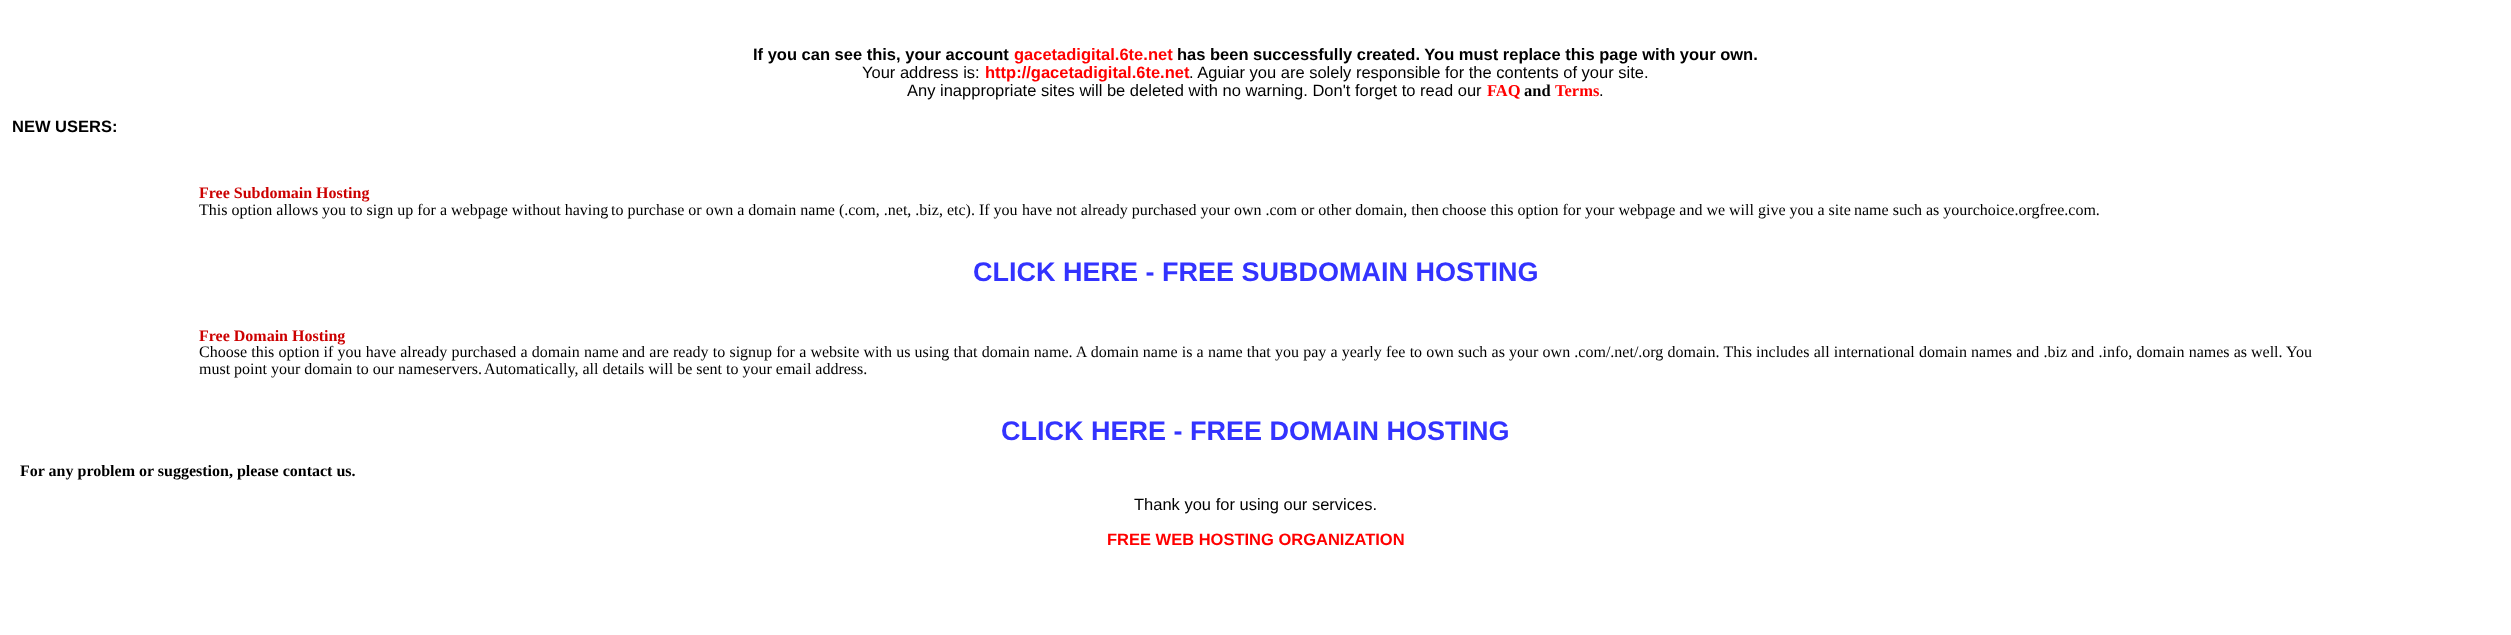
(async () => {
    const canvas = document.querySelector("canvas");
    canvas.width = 2511;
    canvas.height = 635;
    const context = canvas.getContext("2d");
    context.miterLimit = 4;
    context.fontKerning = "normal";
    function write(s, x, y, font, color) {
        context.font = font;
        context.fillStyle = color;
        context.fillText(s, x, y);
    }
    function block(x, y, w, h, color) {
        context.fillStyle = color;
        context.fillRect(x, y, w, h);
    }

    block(0, 0, 2511, 635, "rgb(255, 255, 255)");
    write("If you can see this, your account", 753, 60, "bold 16.5px Liberation Sans", "rgb(0, 0, 0)");
    write("gacetadigital.6te.net", 1014, 60, "bold 16.5px Liberation Sans", "rgb(255, 0, 0)");
    write("has been successfully created. You must replace this page with your own.", 1177, 60, "bold 16.5px Liberation Sans", "rgb(0, 0, 0)");
    write("Your address is:", 862, 78, "16.5px Liberation Sans", "rgb(0, 0, 0)");
    write("http://gacetadigital.6te.net", 985, 78, "bold 16.5px Liberation Sans", "rgb(255, 0, 0)");
    write(". Aguiar you are solely responsible for the contents of your site.", 1189, 78, "16.5px Liberation Sans", "rgb(0, 0, 0)");
    write("Any inappropriate sites will be deleted with no warning. Don't forget to read our", 907, 96, "16.5px Liberation Sans", "rgb(0, 0, 0)");
    write("FAQ", 1487, 96, "bold 16.5px Liberation Serif", "rgb(255, 0, 0)");
    write("and", 1524, 96, "bold 16.5px Liberation Serif", "rgb(0, 0, 0)");
    write("Terms", 1555, 96, "bold 16.5px Liberation Serif", "rgb(255, 0, 0)");
    write(".", 1599, 96, "16.5px Liberation Sans", "rgb(0, 0, 0)");
    write("NEW USERS:", 12, 132, "bold 16.5px Liberation Sans", "rgb(0, 0, 0)");
    write("Free Subdomain Hosting", 199, 198, "bold 16px Liberation Serif", "rgb(204, 0, 0)");
    write("This option allows you to sign up for a webpage without having", 199, 215, "16px Liberation Serif", "rgb(0, 0, 0)");
    write("to purchase or own a domain name (.com, .net, .biz, etc). If you", 611, 215, "16px Liberation Serif", "rgb(0, 0, 0)");
    write("have not already purchased your own .com or other domain, then", 1022, 215, "16px Liberation Serif", "rgb(0, 0, 0)");
    write("choose this option for your webpage and we will give you a site", 1442, 215, "16px Liberation Serif", "rgb(0, 0, 0)");
    write("name such as yourchoice.orgfree.com.", 1854, 215, "16px Liberation Serif", "rgb(0, 0, 0)");
    write("CLICK HERE - FREE SUBDOMAIN HOSTING", 973, 281, "bold 27px Liberation Sans", "rgb(51, 51, 255)");
    write("Free Domain Hosting", 199, 341, "bold 16px Liberation Serif", "rgb(204, 0, 0)");
    context.wordSpacing = "0.2px";
    write("Choose this option if you have already purchased a domain name", 199, 357, "16px Liberation Serif", "rgb(0, 0, 0)");
    write("and are ready to signup for a website with us using that domain name. A domain name is a name that you pay a yearly fee to own", 622, 357, "16px Liberation Serif", "rgb(0, 0, 0)");
    write("such as your own .com/.net/.org domain. This includes all international domain names and .biz and .info, domain names as", 1458, 357, "16px Liberation Serif", "rgb(0, 0, 0)");
    context.wordSpacing = "0px";
    write("well. You", 2251, 357, "16px Liberation Serif", "rgb(0, 0, 0)");
    write("must point your domain to our nameservers.", 199, 374, "16px Liberation Serif", "rgb(0, 0, 0)");
    write("Automatically, all details will be sent to your email address.", 484, 374, "16px Liberation Serif", "rgb(0, 0, 0)");
    write("CLICK HERE - FREE DOMAIN HOSTING", 1001, 440, "bold 27px Liberation Sans", "rgb(51, 51, 255)");
    write("For any problem or suggestion, please contact us.", 20, 476, "bold 16px Liberation Serif", "rgb(0, 0, 0)");
    write("Thank you for using our services.", 1134, 510, "16.5px Liberation Sans", "rgb(0, 0, 0)");
    write("FREE WEB HOSTING ORGANIZATION", 1107, 545, "bold 16.5px Liberation Sans", "rgb(255, 0, 0)");
})();
